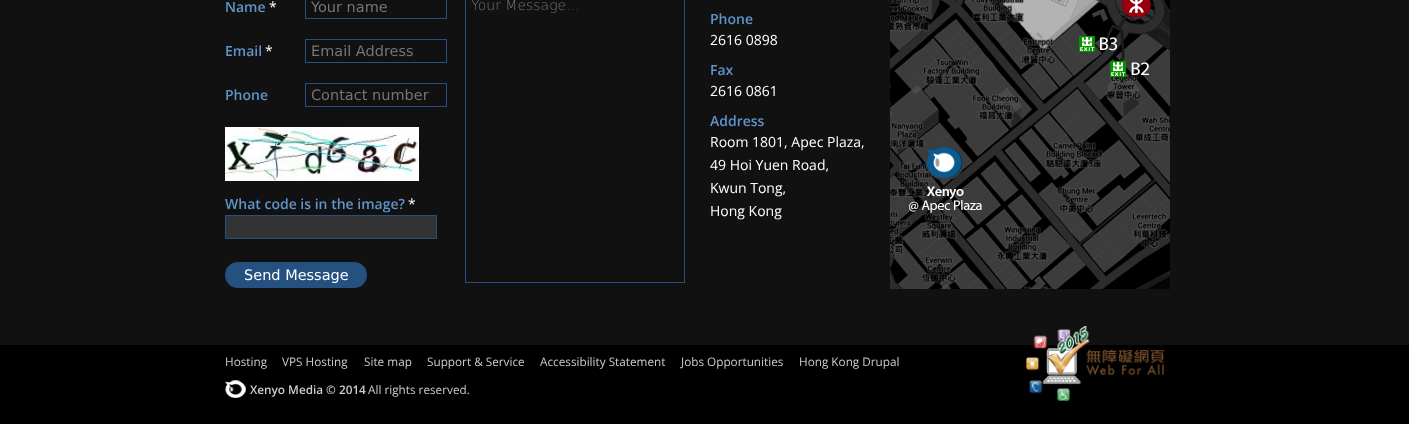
(async () => {
    const canvas = document.querySelector("canvas");
    canvas.width = 1409;
    canvas.height = 424;
    const context = canvas.getContext("2d");
    context.miterLimit = 4;
    context.fontKerning = "normal";
    function write(s, x, y, font, color) {
        context.font = font;
        context.fillStyle = color;
        context.fillText(s, x, y);
    }
    function block(x, y, w, h, color) {
        context.fillStyle = color;
        context.fillRect(x, y, w, h);
    }
    function card(x, y, w, h, r, color) {
        context.fillStyle = color;
        context.beginPath();
        context.roundRect(x, y, w, h, r);
        context.fill();
    }
    async function photo(src, x, y, w, h) {
        const img = new Image();
        img.src = src;
        await img.decode();
        context.drawImage(img, x, y, w, h);
    }

    block(0, 0, 1409, 424, "rgb(17, 17, 17)");
    write("Name", 225, 12, "600 14px Open Sans", "rgb(95, 149, 202)");
    write("*", 269, 12, "14px Open Sans", "rgb(255, 255, 255)");
    context.strokeStyle = "rgb(36, 81, 128)";
    context.strokeRect(305.5, -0.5, 141, 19);
    write("Your name", 311, 12, "14.5px DejaVu Sans", "rgb(117, 117, 117)");
    context.strokeRect(465.5, -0.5, 219, 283);
    write("Your Message...", 471, 10, "200 14px DejaVu Sans", "rgb(117, 117, 117)");
    write("Email", 225, 56, "600 14px Open Sans", "rgb(95, 149, 202)");
    write("*", 265, 56, "14px Open Sans", "rgb(255, 255, 255)");
    context.strokeRect(305.5, 39.5, 141, 23);
    write("Email Address", 311, 56, "14.5px DejaVu Sans", "rgb(117, 117, 117)");
    write("Phone", 225, 100, "600 14px Open Sans", "rgb(95, 149, 202)");
    context.strokeRect(305.5, 83.5, 141, 23);
    write("Contact number", 311, 100, "14.5px DejaVu Sans", "rgb(117, 117, 117)");
    await photo("media/1.png", 225, 127, 194, 54);
    write("What code is in the image?", 225, 209, "600 14px Open Sans", "rgb(95, 149, 202)");
    write("*", 408, 209, "14px Open Sans", "rgb(255, 255, 255)");
    context.fillStyle = "rgb(51, 51, 51)";
    context.beginPath();
    context.rect(225.5, 215.5, 211, 23);
    context.fill();
    context.stroke();
    card(225, 262, 142, 26, 13, "rgb(36, 81, 128)");
    write("Send Message", 244, 280, "14.5px DejaVu Sans", "rgb(255, 255, 255)");
    write("Phone", 710, 24, "600 14px Open Sans", "rgb(95, 149, 202)");
    write("2616 0898", 710, 45, "14px Open Sans", "rgb(255, 255, 255)");
    write("Fax", 710, 75, "600 14px Open Sans", "rgb(95, 149, 202)");
    write("2616 0861", 710, 96, "14px Open Sans", "rgb(255, 255, 255)");
    write("Address", 710, 126, "600 14px Open Sans", "rgb(95, 149, 202)");
    write("Room 1801, Apec Plaza,", 710, 147, "14px Open Sans", "rgb(255, 255, 255)");
    write("49 Hoi Yuen Road,", 710, 170, "14px Open Sans", "rgb(255, 255, 255)");
    write("Kwun Tong,", 710, 193, "14px Open Sans", "rgb(255, 255, 255)");
    write("Hong Kong", 710, 216, "14px Open Sans", "rgb(255, 255, 255)");
    await photo("media/2.png", 890, 0, 280, 289);
    block(0, 345, 1409, 79, "rgb(0, 0, 0)");
    write("Hosting", 225, 366, "11.75px Open Sans", "rgb(204, 204, 204)");
    write("VPS Hosting", 282, 366, "11.75px Open Sans", "rgb(204, 204, 204)");
    write("Site map", 364, 366, "11.75px Open Sans", "rgb(204, 204, 204)");
    write("Support & Service", 427, 366, "11.75px Open Sans", "rgb(204, 204, 204)");
    write("Accessibility Statement", 540, 366, "11.75px Open Sans", "rgb(204, 204, 204)");
    write("Jobs Opportunities", 681, 366, "11.75px Open Sans", "rgb(204, 204, 204)");
    write("Hong Kong Drupal", 799, 366, "11.75px Open Sans", "rgb(204, 204, 204)");
    await photo("media/3.png", 1025, 326, 140, 75);
    await photo("media/4.png", 225, 380, 21, 18);
    write("Xenyo Media © 2014", 250, 394, "600 11.75px Open Sans", "rgb(204, 204, 204)");
    write("All rights reserved.", 368, 394, "11.75px Open Sans", "rgb(204, 204, 204)");
})();
